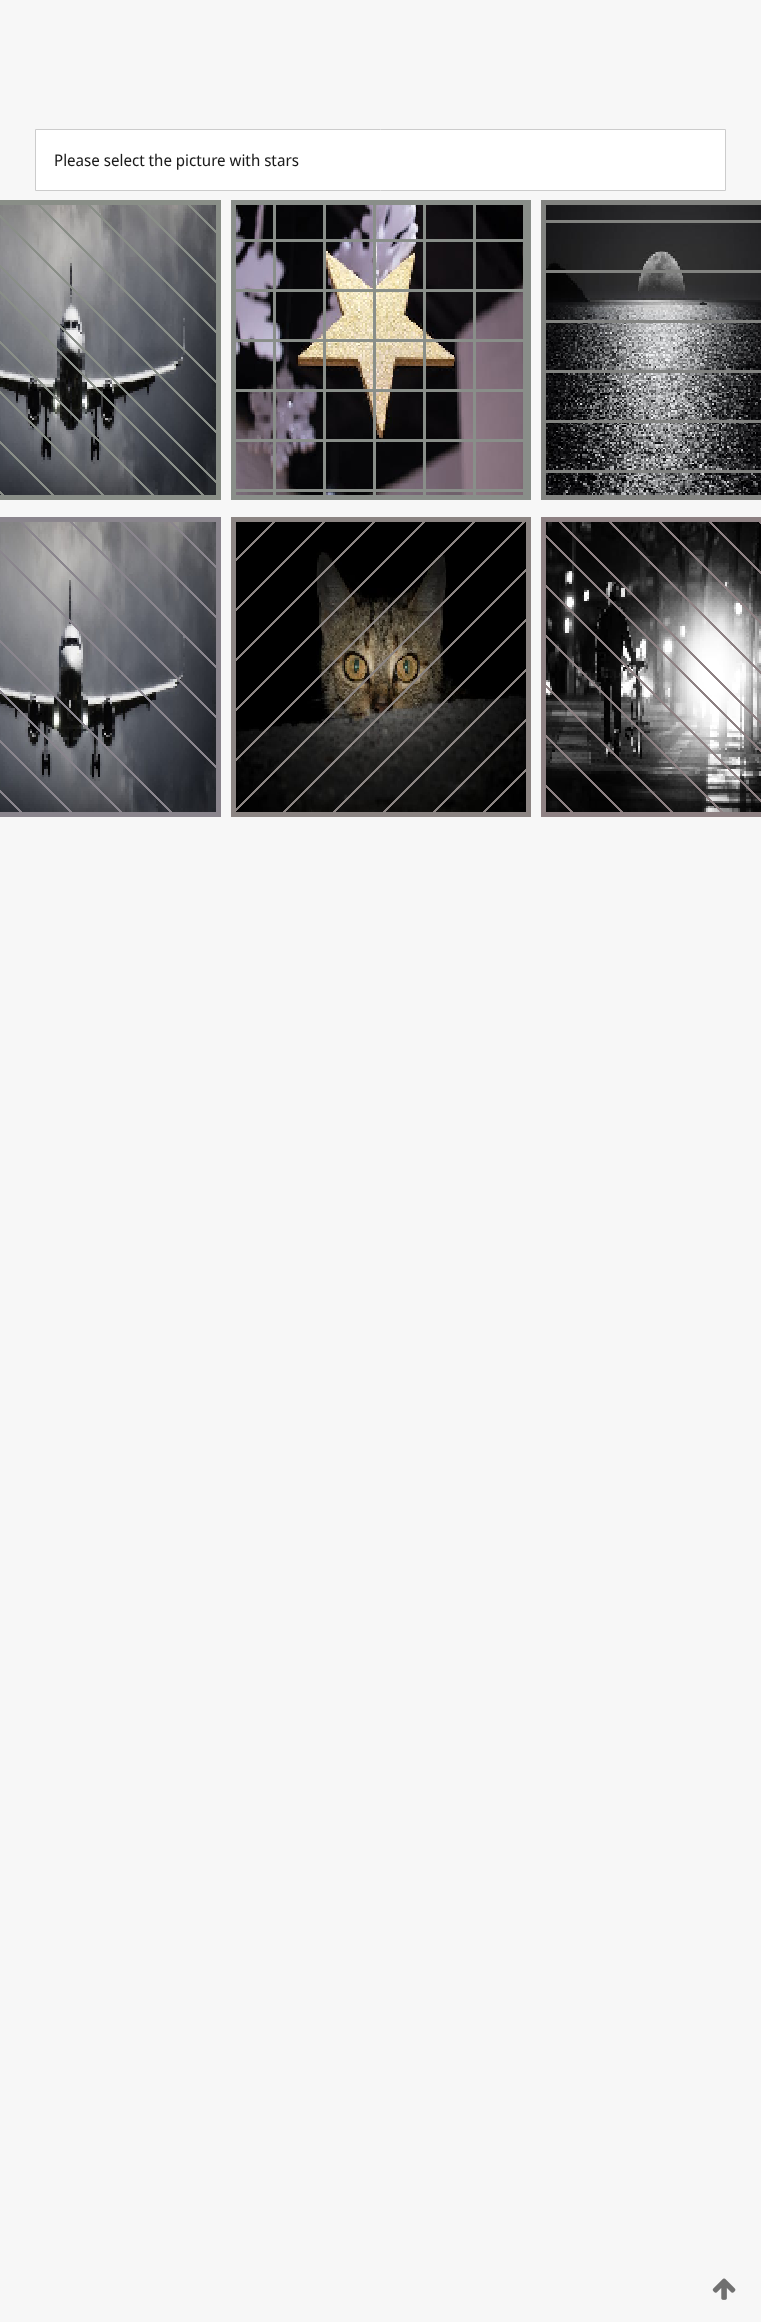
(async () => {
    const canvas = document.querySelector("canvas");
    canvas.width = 761;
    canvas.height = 2322;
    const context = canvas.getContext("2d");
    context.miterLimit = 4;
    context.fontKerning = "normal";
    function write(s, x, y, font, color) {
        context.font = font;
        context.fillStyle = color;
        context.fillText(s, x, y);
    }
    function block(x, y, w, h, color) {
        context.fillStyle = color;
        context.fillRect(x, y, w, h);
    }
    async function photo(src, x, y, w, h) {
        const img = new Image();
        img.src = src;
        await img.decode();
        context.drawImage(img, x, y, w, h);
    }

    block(0, 0, 761, 2322, "rgb(247, 247, 247)");
    context.fillStyle = "rgb(255, 255, 255)";
    context.beginPath();
    context.rect(35.5, 129.5, 690, 61);
    context.fill();
    context.strokeStyle = "rgb(204, 204, 204)";
    context.stroke();
    write("Please select the picture with stars", 54, 166, "16px Noto Sans Display", "rgb(26, 26, 26)");
    await photo("media/1.png", 0, 200, 221, 300);
    await photo("media/2.png", 231, 200, 300, 300);
    await photo("media/3.png", 541, 200, 220, 300);
    await photo("media/4.png", 0, 517, 221, 300);
    await photo("media/5.png", 231, 517, 300, 300);
    await photo("media/6.png", 541, 517, 220, 300);
    await photo("media/7.png", 712, 2278, 24, 22);
})();
